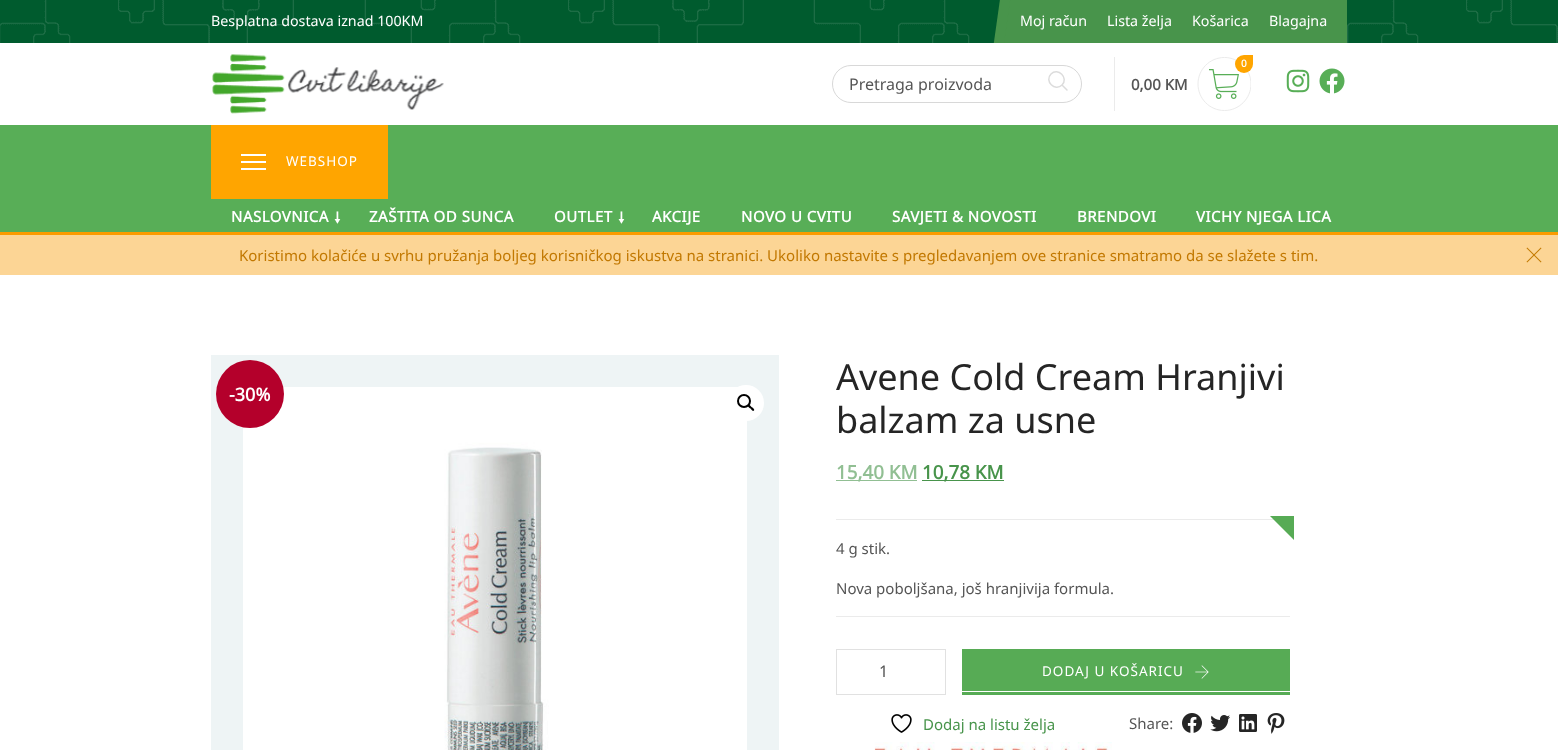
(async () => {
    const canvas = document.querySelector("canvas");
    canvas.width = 1558;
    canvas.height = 750;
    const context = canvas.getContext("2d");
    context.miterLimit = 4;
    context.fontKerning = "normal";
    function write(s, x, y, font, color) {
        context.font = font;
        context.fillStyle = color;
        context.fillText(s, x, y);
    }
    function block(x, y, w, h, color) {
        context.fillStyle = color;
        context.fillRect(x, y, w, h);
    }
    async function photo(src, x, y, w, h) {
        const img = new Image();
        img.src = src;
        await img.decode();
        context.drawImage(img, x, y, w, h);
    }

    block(0, 0, 1558, 750, "rgb(255, 255, 255)");
    block(0, 0, 1558, 43, "rgb(0, 91, 46)");
    await photo("media/1.png", 0, 0, 1558, 43);
    write("Besplatna dostava iznad 100KM", 211, 26, "14.25px Noto Sans", "rgb(255, 255, 255)");
    block(1004, 0, 343, 43, "rgb(72, 148, 75)");
    context.beginPath();
    context.moveTo(1003, -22);
    context.lineTo(1013, -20);
    context.lineTo(1001, 64);
    context.lineTo(991, 63);
    context.closePath();
    context.fill();
    write("Moj račun", 1020, 26, "14.25px Noto Sans", "rgb(255, 255, 255)");
    write("Lista želja", 1107, 26, "14.25px Noto Sans", "rgb(255, 255, 255)");
    write("Košarica", 1192, 26, "14.25px Noto Sans", "rgb(255, 255, 255)");
    write("Blagajna", 1269, 26, "14.25px Noto Sans", "rgb(255, 255, 255)");
    block(991, 43, 13, 21, "rgb(255, 255, 255)");
    await photo("media/2.png", 212, 54, 232, 60);
    context.beginPath();
    context.roundRect(832.5, 65.5, 249, 37, 18.5);
    context.strokeStyle = "rgb(216, 216, 216)";
    context.stroke();
    write("Pretraga proizvoda", 849, 90, "16px Noto Sans", "rgb(85, 85, 85)");
    context.beginPath();
    context.moveTo(1067, 90);
    context.lineTo(1062, 85);
    context.moveTo(1062, 85);
    context.bezierCurveTo(1069, 78, 1058, 67, 1051, 74);
    context.bezierCurveTo(1044, 81, 1055, 92, 1062, 85);
    context.closePath();
    context.strokeStyle = "rgb(220, 220, 220)";
    context.lineWidth = 1.5;
    context.lineCap = "round";
    context.lineJoin = "round";
    context.stroke();
    block(1114, 57, 1, 54, "rgb(235, 235, 235)");
    await photo("media/3.png", 1209, 69, 30, 30);
    context.save();
    context.beginPath();
    context.moveTo(1197, 111);
    context.lineTo(1197, 57);
    context.lineTo(1251, 57);
    context.lineTo(1251, 111);
    context.closePath();
    context.clip();
    context.beginPath();
    context.moveTo(1198, 84);
    context.bezierCurveTo(1198, 69.5, 1209.5, 57.5, 1224.5, 57.5);
    context.bezierCurveTo(1239, 57.5, 1251, 69.5, 1251, 84);
    context.bezierCurveTo(1251, 98.5, 1239, 110.5, 1224.5, 110.5);
    context.bezierCurveTo(1209.5, 110.5, 1198, 98.5, 1198, 84);
    context.closePath();
    context.strokeStyle = "rgb(235, 235, 235)";
    context.lineWidth = 1;
    context.lineCap = "butt";
    context.lineJoin = "miter";
    context.stroke();
    context.restore();
    context.fillStyle = "rgb(255, 165, 0)";
    context.beginPath();
    context.arc(1244, 64, 9, 0, Math.PI * 2);
    context.fill();
    block(1244, 55, 9, 9, "rgb(255, 165, 0)");
    write("0", 1241, 67, "bold 10px Noto Sans", "rgb(255, 255, 255)");
    write("0,00 KM", 1131, 90, "bold 15px Noto Sans", "rgb(85, 85, 85)");
    await photo("media/4.png", 1286, 69, 24, 24);
    await photo("media/5.png", 1319, 68, 26, 26);
    block(0, 125, 1558, 107, "rgb(88, 174, 87)");
    block(211, 125, 177, 74, "rgb(255, 165, 0)");
    block(241, 154, 25, 2, "rgb(255, 255, 255)");
    block(241, 161, 25, 2, "rgb(255, 255, 255)");
    block(241, 168, 25, 2, "rgb(255, 255, 255)");
    context.letterSpacing = "1px";
    write("WEBSHOP", 286, 166, "13.5px Noto Sans", "rgb(255, 255, 255)");
    context.letterSpacing = "0.5px";
    write("NASLOVNICA", 231, 222, "bold 15px Noto Sans", "rgb(255, 255, 255)");
    context.letterSpacing = "0px";
    write("🠗", 334, 223, "bold 15px 'Noto Sans Symbols 2'", "rgb(255, 255, 255)");
    context.letterSpacing = "0.5px";
    write("ZAŠTITA OD SUNCA", 369, 222, "bold 15px Noto Sans", "rgb(255, 255, 255)");
    write("OUTLET", 554, 222, "bold 15px Noto Sans", "rgb(255, 255, 255)");
    context.letterSpacing = "0px";
    write("🠗", 618, 223, "bold 15px 'Noto Sans Symbols 2'", "rgb(255, 255, 255)");
    context.letterSpacing = "0.5px";
    write("AKCIJE", 652, 222, "bold 15px Noto Sans", "rgb(255, 255, 255)");
    write("NOVO U CVITU", 741, 222, "bold 15px Noto Sans", "rgb(255, 255, 255)");
    write("SAVJETI & NOVOSTI", 892, 222, "bold 15px Noto Sans", "rgb(255, 255, 255)");
    write("BRENDOVI", 1077, 222, "bold 15px Noto Sans", "rgb(255, 255, 255)");
    write("VICHY NJEGA LICA", 1196, 222, "bold 15px Noto Sans", "rgb(255, 255, 255)");
    block(0, 235, 1558, 40, "rgb(252, 213, 149)");
    block(0, 232, 1558, 3, "rgb(251, 155, 0)");
    context.letterSpacing = "0px";
    write("Koristimo kolačiće u svrhu pružanja boljeg korisničkog iskustva na stranici. Ukoliko nastavite s pregledavanjem ove stranice smatramo da se slažete s tim.", 239, 261, "15px Noto Sans", "rgb(194, 120, 0)");
    await photo("media/6.png", 1526, 247, 16, 16);
    block(211, 355, 568, 395, "rgb(238, 244, 245)");
    await photo("media/7.png", 243, 387, 504, 363);
    context.fillStyle = "rgb(180, 0, 43)";
    context.beginPath();
    context.arc(250, 394, 34, 0, Math.PI * 2);
    context.fill();
    write("-30%", 229, 401, "bold 18px Noto Sans", "rgb(255, 255, 255)");
    context.beginPath();
    context.arc(746, 403, 18, 0, Math.PI * 2);
    context.fill();
    context.beginPath();
    context.arc(744, 401, 6, 0, Math.PI * 2);
    context.strokeStyle = "rgb(0, 0, 0)";
    context.lineWidth = 2;
    context.stroke();
    context.fillStyle = "rgb(0, 0, 0)";
    context.beginPath();
    context.moveTo(748, 405);
    context.bezierCurveTo(749.5, 404, 751, 406.5, 751.5, 407);
    context.bezierCurveTo(752.5, 407.5, 755, 409.5, 754, 410.5);
    context.bezierCurveTo(752.5, 412, 751, 409, 750.5, 408.5);
    context.bezierCurveTo(749.5, 408, 747, 406, 748, 405);
    context.closePath();
    context.fill();
    write("Avene Cold Cream Hranjivi", 836, 390, "36px Noto Sans", "rgb(37, 37, 37)");
    write("balzam za usne", 836, 433, "36px Noto Sans", "rgb(37, 37, 37)");
    block(836, 480, 81, 1, "rgb(145, 191, 147)");
    write("15,40 KM", 836, 479, "bold 18.75px Noto Sans", "rgb(145, 191, 147)");
    block(922, 480, 82, 1, "rgb(72, 148, 75)");
    write("10,78 KM", 922, 479, "bold 18.75px Noto Sans", "rgb(72, 148, 75)");
    block(836, 519, 438, 1, "rgb(235, 235, 235)");
    block(836, 616, 454, 1, "rgb(235, 235, 235)");
    context.fillStyle = "rgb(87, 171, 85)";
    context.beginPath();
    context.moveTo(1270, 516);
    context.lineTo(1294, 516);
    context.lineTo(1294, 540);
    context.closePath();
    context.fill();
    write("4 g stik.", 836, 554, "15px Noto Sans", "rgb(85, 85, 85)");
    write("Nova poboljšana, još hranjivija formula.", 836, 594, "15px Noto Sans", "rgb(85, 85, 85)");
    context.strokeStyle = "rgb(225, 225, 225)";
    context.lineWidth = 1;
    context.lineJoin = "miter";
    context.strokeRect(836.5, 649.5, 109, 45);
    write("1", 879, 677, "16px Noto Sans", "rgb(85, 85, 85)");
    block(962, 649, 328, 46, "rgb(87, 171, 85)");
    context.letterSpacing = "1px";
    write("DODAJ U KOŠARICU", 1042, 676, "13.5px Noto Sans", "rgb(255, 255, 255)");
    await photo("media/8.png", 1195, 665, 14, 14);
    block(962, 691, 328, 1, "rgb(255, 255, 255)");
    await photo("media/9.png", 891, 714, 21, 19);
    context.letterSpacing = "0px";
    write("Dodaj na listu želja", 923, 730, "15px Noto Sans", "rgb(72, 148, 75)");
    write("Share:", 1129, 729, "15px Noto Sans", "rgb(85, 85, 85)");
    await photo("media/10.png", 1182, 713, 20, 20);
    await photo("media/11.png", 1210, 715, 20, 17);
    await photo("media/12.png", 1239, 714, 18, 18);
    await photo("media/13.png", 1267, 713, 18, 21);
    await photo("media/14.png", 874, 742, 238, 8);
})();
